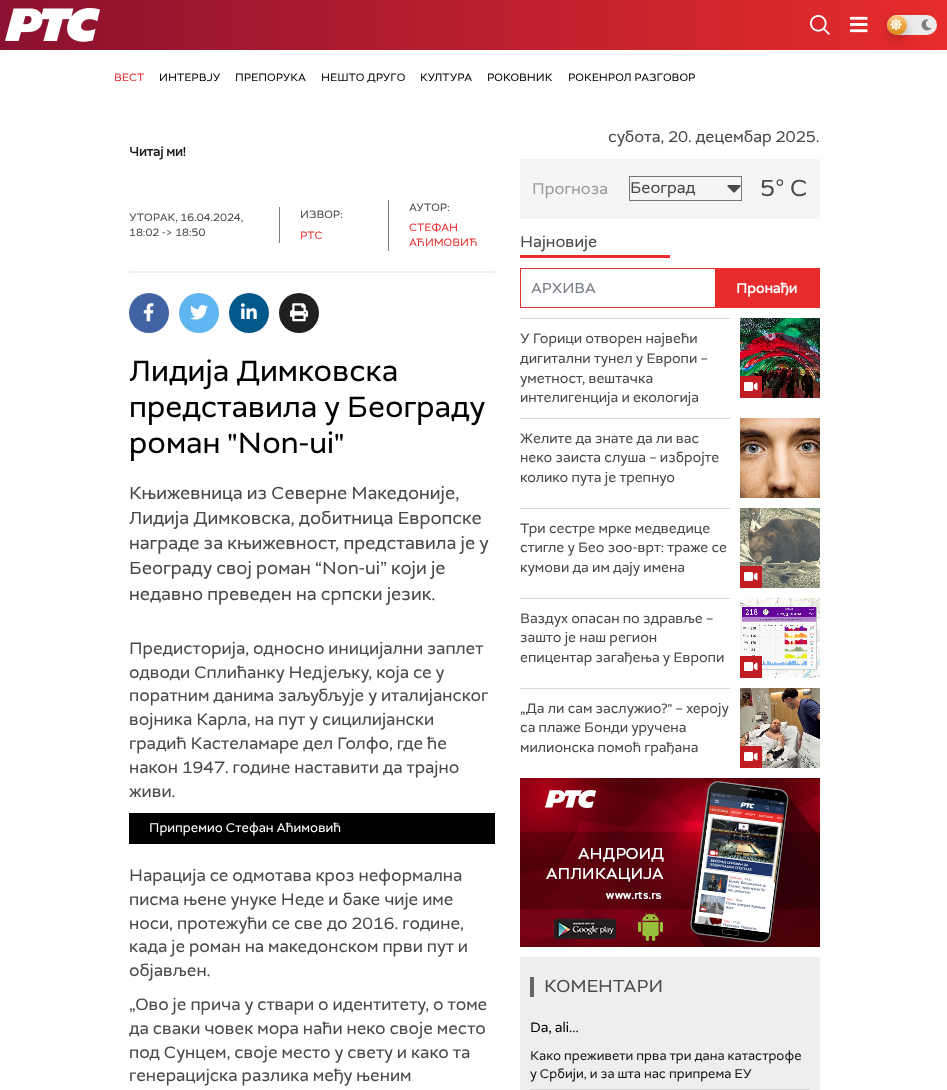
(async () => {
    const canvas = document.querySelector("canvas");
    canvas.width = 947;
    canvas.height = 1090;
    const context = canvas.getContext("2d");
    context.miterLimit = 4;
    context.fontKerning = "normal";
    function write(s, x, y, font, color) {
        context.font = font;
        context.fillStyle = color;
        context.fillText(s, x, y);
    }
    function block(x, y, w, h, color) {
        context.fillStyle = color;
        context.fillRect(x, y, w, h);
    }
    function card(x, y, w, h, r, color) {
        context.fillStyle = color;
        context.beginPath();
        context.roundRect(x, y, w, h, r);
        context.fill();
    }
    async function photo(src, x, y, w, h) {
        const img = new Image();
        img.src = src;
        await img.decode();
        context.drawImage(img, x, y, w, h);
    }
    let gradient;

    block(0, 0, 947, 1090, "rgb(255, 255, 255)");
    gradient = context.createLinearGradient(0, 25, 947, 25);
    gradient.addColorStop(0, "rgb(138, 17, 47)");
    gradient.addColorStop(1, "rgb(232, 44, 44)");
    context.fillStyle = gradient;
    context.fillRect(0, 0, 947, 50);
    await photo("media/1.png", 5, 8, 95, 34);
    await photo("media/2.png", 810, 15, 20, 20);
    await photo("media/3.png", 850, 16, 18, 17);
    card(887, 15, 50, 20, 10, "rgb(235, 235, 235)");
    context.fillStyle = "rgba(0, 0, 0, 0.2)";
    context.filter = "blur(5px)";
    context.beginPath();
    context.roundRect(887, 20, 20, 20, 10);
    context.fill();
    context.filter = "none";
    gradient = context.createLinearGradient(897, 15, 897, 35);
    gradient.addColorStop(0, "rgb(255, 204, 137)");
    gradient.addColorStop(1, "rgb(216, 134, 11)");
    context.fillStyle = gradient;
    context.beginPath();
    context.arc(897, 25, 10, 0, Math.PI * 2);
    context.fill();
    await photo("media/4.png", 890, 18, 12, 13);
    await photo("media/5.png", 921, 19, 11, 12);
    write("ВЕСТ", 114, 81, "11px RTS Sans", "rgb(232, 44, 44)");
    write("ИНТЕРВЈУ", 159, 81, "11px RTS Sans", "rgb(0, 0, 0)");
    write("ПРЕПОРУКА", 235, 81, "11px RTS Sans", "rgb(0, 0, 0)");
    write("НЕШТО ДРУГО", 321, 81, "11px RTS Sans", "rgb(0, 0, 0)");
    write("КУЛТУРА", 420, 81, "11px RTS Sans", "rgb(0, 0, 0)");
    write("РОКОВНИК", 487, 81, "11px RTS Sans", "rgb(0, 0, 0)");
    write("РОКЕНРОЛ РАЗГОВОР", 568, 81, "11px RTS Sans", "rgb(0, 0, 0)");
    write("Читај ми!", 129, 156, "bold 13px RTS Sans", "rgb(25, 25, 25)");
    write("УТОРАК, 16.04.2024,", 129, 221, "11px RTS Sans", "rgb(74, 74, 74)");
    write("18:02 -> 18:50", 129, 236, "11px RTS Sans", "rgb(74, 74, 74)");
    block(279, 207, 1, 36, "rgb(117, 124, 134)");
    write("ИЗВОР:", 300, 218, "11px RTS Sans", "rgb(74, 74, 74)");
    write("РТС", 300, 239, "11px RTS Sans", "rgb(232, 44, 44)");
    block(388, 200, 1, 51, "rgb(117, 124, 134)");
    write("АУТОР:", 409, 211, "11px RTS Sans", "rgb(74, 74, 74)");
    write("СТЕФАН", 409, 231, "11px RTS Sans", "rgb(232, 44, 44)");
    write("АЋИМОВИЋ", 409, 246, "11px RTS Sans", "rgb(232, 44, 44)");
    block(129, 271, 366, 2, "rgb(238, 238, 238)");
    context.fillStyle = "rgb(66, 99, 163)";
    context.beginPath();
    context.arc(149, 313, 20, 0, Math.PI * 2);
    context.fill();
    await photo("media/6.png", 143, 303, 11, 19);
    context.fillStyle = "rgb(96, 182, 240)";
    context.beginPath();
    context.arc(199, 313, 20, 0, Math.PI * 2);
    context.fill();
    await photo("media/7.png", 190, 304, 18, 16);
    context.fillStyle = "rgb(1, 88, 139)";
    context.beginPath();
    context.arc(249, 313, 20, 0, Math.PI * 2);
    context.fill();
    await photo("media/8.png", 241, 303, 16, 16);
    context.fillStyle = "rgb(32, 32, 32)";
    context.beginPath();
    context.arc(299, 313, 20, 0, Math.PI * 2);
    context.fill();
    await photo("media/9.png", 290, 303, 18, 19);
    write("Лидија Димковска", 129, 381, "30px RTS Sans", "rgb(0, 0, 0)");
    write("представила у Београду", 129, 417, "30px RTS Sans", "rgb(0, 0, 0)");
    write("роман \"Non-ui\"", 129, 453, "30px RTS Sans", "rgb(0, 0, 0)");
    write("Књижевница из Северне Македоније,", 129, 499, "18px RTS Sans", "rgb(74, 74, 74)");
    write("Лидија Димковска, добитница Европске", 129, 524, "18px RTS Sans", "rgb(74, 74, 74)");
    write("награде за књижевност, представила је у", 129, 549, "18px RTS Sans", "rgb(74, 74, 74)");
    write("Београду свој роман “Non-ui” који је", 129, 574, "18px RTS Sans", "rgb(74, 74, 74)");
    write("недавно преведен на српски језик.", 129, 600, "18px RTS Sans", "rgb(74, 74, 74)");
    write("Предисторија, односно иницијални заплет", 129, 654, "17px RTS Sans", "rgb(74, 74, 74)");
    write("одводи Сплићанку Недјељку, која се у", 129, 678, "17px RTS Sans", "rgb(74, 74, 74)");
    write("поратним данима заљубљује у италијанског", 129, 701, "17px RTS Sans", "rgb(74, 74, 74)");
    write("војника Карла, на пут у сицилијански", 129, 725, "17px RTS Sans", "rgb(74, 74, 74)");
    write("градић Кастеламаре дел Голфо, где ће", 129, 749, "17px RTS Sans", "rgb(74, 74, 74)");
    write("након 1947. године наставити да трајно", 129, 773, "17px RTS Sans", "rgb(74, 74, 74)");
    write("живи.", 129, 797, "17px RTS Sans", "rgb(74, 74, 74)");
    block(129, 813, 366, 31, "rgb(0, 0, 0)");
    write("Припремио Стефан Аћимовић", 149, 832, "13px RTS Sans", "rgb(255, 255, 255)");
    write("Нарација се одмотава кроз неформална", 129, 881, "17px RTS Sans", "rgb(74, 74, 74)");
    write("писма њене унуке Неде и баке чије име", 129, 905, "17px RTS Sans", "rgb(74, 74, 74)");
    write("носи, протежући се све до 2016. године,", 129, 929, "17px RTS Sans", "rgb(74, 74, 74)");
    write("када је роман на македонском први пут и", 129, 952, "17px RTS Sans", "rgb(74, 74, 74)");
    write("објављен.", 129, 976, "17px RTS Sans", "rgb(74, 74, 74)");
    write("„Ово је прича у ствари о идентитету, о томе", 129, 1010, "17px RTS Sans", "rgb(74, 74, 74)");
    write("да сваки човек мора наћи неко своје место", 129, 1034, "17px RTS Sans", "rgb(74, 74, 74)");
    write("под Сунцем, своје место у свету и како та", 129, 1058, "17px RTS Sans", "rgb(74, 74, 74)");
    write("генерацијска разлика међу њеним", 129, 1081, "17px RTS Sans", "rgb(74, 74, 74)");
    write("субота, 20. децембар 2025.", 608, 142, "16px RTS Sans", "rgb(74, 74, 74)");
    block(520, 159, 300, 60, "rgb(245, 245, 245)");
    write("Прогноза", 532, 194, "16px RTS Sans", "rgb(155, 155, 155)");
    await photo("media/10.png", 727, 185, 14, 8);
    context.strokeStyle = "rgb(118, 118, 118)";
    context.strokeRect(629.5, 176.5, 112, 24);
    write("Београд", 630, 193, "16px RTS Sans", "rgb(74, 74, 74)");
    write("5", 760, 196, "24px RTS Sans", "rgb(74, 74, 74)");
    write("°", 775, 196, "24px Liberation Sans", "rgb(74, 74, 74)");
    write("C", 790, 196, "24px RTS Sans", "rgb(74, 74, 74)");
    block(520, 255, 150, 3, "rgb(232, 44, 44)");
    write("Најновије", 520, 247, "16px RTS Sans", "rgb(74, 74, 74)");
    block(520, 268, 195, 1, "rgb(235, 50, 50)");
    block(520, 307, 195, 1, "rgb(235, 50, 50)");
    block(520, 268, 1, 40, "rgb(235, 50, 50)");
    write("АРХИВА", 531, 293, "15px RTS Sans", "rgb(117, 124, 134)");
    block(715, 268, 105, 40, "rgb(232, 44, 44)");
    write("Пронађи", 736, 293, "bold 14px RTS Sans", "rgb(255, 255, 255)");
    block(520, 318, 210, 1, "rgb(216, 216, 216)");
    write("У Горици отворен највећи", 520, 343, "14px RTS Sans", "rgb(74, 74, 74)");
    write("дигитални тунел у Европи –", 520, 363, "14px RTS Sans", "rgb(74, 74, 74)");
    write("уметност, вештачкa", 520, 383, "14px RTS Sans", "rgb(74, 74, 74)");
    write("интелигенцијa и екологија", 520, 402, "14px RTS Sans", "rgb(74, 74, 74)");
    await photo("media/11.png", 740, 318, 80, 80);
    block(740, 376, 22, 22, "rgb(195, 29, 36)");
    await photo("media/12.png", 744, 382, 14, 9);
    block(520, 418, 210, 1, "rgb(216, 216, 216)");
    write("Желите да знате да ли вас", 520, 443, "14px RTS Sans", "rgb(74, 74, 74)");
    write("неко заиста слуша – избројте", 520, 462, "14px RTS Sans", "rgb(74, 74, 74)");
    write("колико пута је трепнуо", 520, 482, "14px RTS Sans", "rgb(74, 74, 74)");
    await photo("media/13.png", 740, 418, 80, 80);
    block(520, 508, 210, 1, "rgb(216, 216, 216)");
    write("Три сестре мрке медведице", 520, 533, "14px RTS Sans", "rgb(74, 74, 74)");
    write("стигле у Бео зоо-врт: траже се", 520, 552, "14px RTS Sans", "rgb(74, 74, 74)");
    write("кумови да им дају имена", 520, 572, "14px RTS Sans", "rgb(74, 74, 74)");
    await photo("media/14.png", 740, 508, 80, 80);
    block(740, 566, 22, 22, "rgb(195, 29, 36)");
    await photo("media/12.png", 744, 572, 14, 9);
    block(520, 598, 210, 1, "rgb(216, 216, 216)");
    write("Ваздух опасан по здравље –", 520, 623, "14px RTS Sans", "rgb(74, 74, 74)");
    write("зашто је наш регион", 520, 642, "14px RTS Sans", "rgb(74, 74, 74)");
    write("епицентар загађења у Европи", 520, 662, "14px RTS Sans", "rgb(74, 74, 74)");
    await photo("media/15.png", 740, 598, 80, 80);
    block(740, 656, 22, 22, "rgb(195, 29, 36)");
    await photo("media/12.png", 744, 662, 14, 9);
    block(520, 688, 210, 1, "rgb(216, 216, 216)");
    write("„Да ли сам заслужио?\" – хероју", 520, 713, "14px RTS Sans", "rgb(74, 74, 74)");
    write("са плаже Бонди уручена", 520, 732, "14px RTS Sans", "rgb(74, 74, 74)");
    write("милионска помоћ грађана", 520, 752, "14px RTS Sans", "rgb(74, 74, 74)");
    await photo("media/16.png", 740, 688, 80, 80);
    block(740, 746, 22, 22, "rgb(195, 29, 36)");
    await photo("media/12.png", 744, 752, 14, 9);
    await photo("media/17.png", 520, 778, 300, 169);
    block(520, 957, 300, 133, "rgb(238, 238, 238)");
    block(530, 977, 4, 20, "rgb(102, 102, 102)");
    write("КОМЕНТАРИ", 544, 992, "18px RTS Sans", "rgb(74, 74, 74)");
    block(530, 1089, 280, 1, "rgb(216, 216, 216)");
    write("Da, ali...", 530, 1032, "14px RTS Sans", "rgb(0, 0, 0)");
    write("Како преживети прва три дана катастрофе", 530, 1060, "13px RTS Sans", "rgb(25, 25, 25)");
    write("у Србији, и за шта нас припрема ЕУ", 530, 1078, "13px RTS Sans", "rgb(25, 25, 25)");
})();
